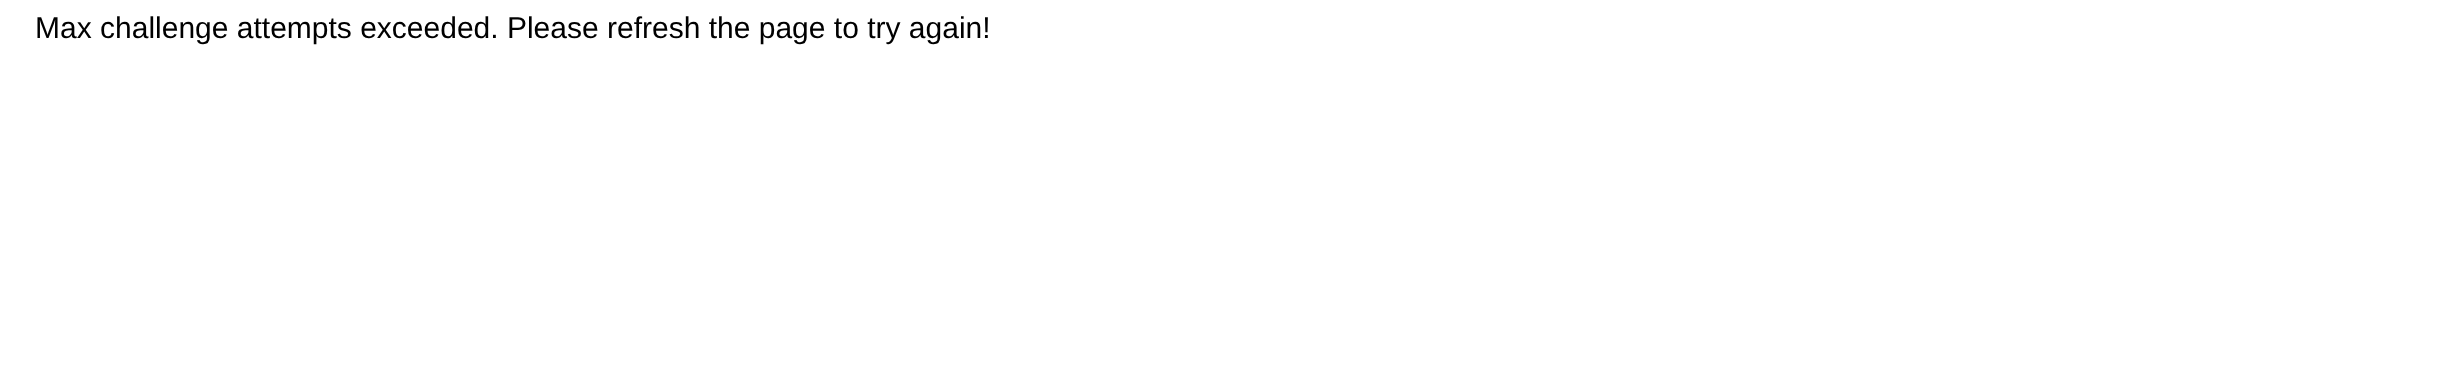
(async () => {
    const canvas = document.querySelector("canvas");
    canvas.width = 2439;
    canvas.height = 375;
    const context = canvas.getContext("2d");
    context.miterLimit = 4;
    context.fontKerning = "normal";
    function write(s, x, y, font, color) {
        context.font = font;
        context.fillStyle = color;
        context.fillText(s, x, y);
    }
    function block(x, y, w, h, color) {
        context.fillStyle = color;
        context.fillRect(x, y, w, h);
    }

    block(0, 0, 2439, 375, "rgb(255, 255, 255)");
    write("Max challenge attempts exceeded. Please refresh the page to try again!", 35, 38, "30px Liberation Sans", "rgb(0, 0, 0)");
})();
